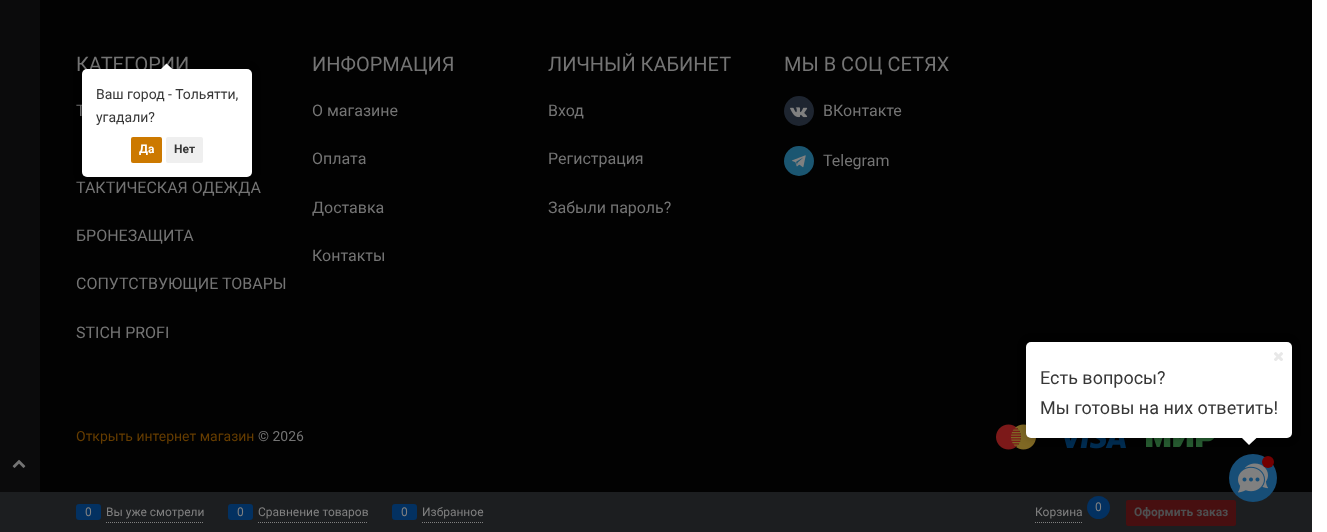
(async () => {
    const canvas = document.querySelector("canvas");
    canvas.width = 1327;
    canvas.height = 532;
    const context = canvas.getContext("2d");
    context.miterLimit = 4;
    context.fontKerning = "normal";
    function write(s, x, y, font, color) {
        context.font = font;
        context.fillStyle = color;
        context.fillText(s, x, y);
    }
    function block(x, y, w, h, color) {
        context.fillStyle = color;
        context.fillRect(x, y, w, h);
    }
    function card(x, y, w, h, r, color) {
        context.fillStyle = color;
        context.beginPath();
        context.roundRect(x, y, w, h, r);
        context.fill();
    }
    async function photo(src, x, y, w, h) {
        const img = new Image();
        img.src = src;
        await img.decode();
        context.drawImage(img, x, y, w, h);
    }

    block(0, 0, 1327, 532, "rgb(255, 255, 255)");
    block(0, 0, 1312, 492, "rgb(2, 2, 2)");
    block(0, 0, 40, 492, "rgba(19, 20, 22, 0.5)");
    await photo("media/1.png", 12, 459, 14, 9);
    write("КАТЕГОРИИ", 76, 71, "20px Roboto", "rgb(116, 116, 116)");
    write("Т", 76, 116, "16px Roboto", "rgb(116, 116, 116)");
    write("ТАКТИЧЕСКАЯ ОДЕЖДА", 76, 193, "16px Roboto", "rgb(116, 116, 116)");
    write("БРОНЕЗАЩИТА", 76, 241, "16px Roboto", "rgb(116, 116, 116)");
    write("СОПУТСТВУЮЩИЕ ТОВАРЫ", 76, 289, "16px Roboto", "rgb(116, 116, 116)");
    write("STICH PROFI", 76, 338, "16px Roboto", "rgb(116, 116, 116)");
    write("ИНФОРМАЦИЯ", 312, 71, "20px Roboto", "rgb(116, 116, 116)");
    write("О магазине", 312, 116, "16px Roboto", "rgb(116, 116, 116)");
    write("Оплата", 312, 164, "16px Roboto", "rgb(116, 116, 116)");
    write("Доставка", 312, 213, "16px Roboto", "rgb(116, 116, 116)");
    write("Контакты", 312, 261, "16px Roboto", "rgb(116, 116, 116)");
    write("ЛИЧНЫЙ КАБИНЕТ", 548, 71, "20px Roboto", "rgb(116, 116, 116)");
    write("Вход", 548, 116, "16px Roboto", "rgb(116, 116, 116)");
    write("Регистрация", 548, 164, "16px Roboto", "rgb(116, 116, 116)");
    write("Забыли пароль?", 548, 213, "16px Roboto", "rgb(116, 116, 116)");
    write("МЫ В СОЦ СЕТЯХ", 784, 71, "20px Roboto", "rgb(116, 116, 116)");
    context.fillStyle = "rgb(30, 37, 48)";
    context.beginPath();
    context.arc(799, 111, 15, 0, Math.PI * 2);
    context.fill();
    await photo("media/2.png", 790, 107, 18, 11);
    write("ВКонтакте", 823, 116, "16px Roboto", "rgb(116, 116, 116)");
    context.fillStyle = "rgb(27, 86, 113)";
    context.beginPath();
    context.arc(799, 161, 15, 0, Math.PI * 2);
    context.fill();
    await photo("media/3.png", 792, 155, 14, 13);
    write("Telegram", 823, 166, "16px Roboto", "rgb(116, 116, 116)");
    write("Открыть интернет магазин", 76, 441, "14px Roboto", "rgb(102, 61, 0)");
    write("© 2026", 258, 441, "14px Roboto", "rgb(116, 116, 116)");
    await photo("media/4.png", 996, 424, 40, 26);
    await photo("media/5.png", 1064, 438, 62, 11);
    await photo("media/6.png", 1146, 438, 68, 9);
    block(0, 492, 1312, 40, "rgb(28, 30, 32)");
    context.beginPath();
    context.moveTo(106, 522.5);
    context.lineTo(204, 522.5);
    context.strokeStyle = "rgb(128, 128, 128)";
    context.setLineDash([1, 1]);
    context.stroke();
    card(76, 504, 25, 16, 3, "rgb(3, 49, 97)");
    write("0", 85, 516, "12px Roboto", "rgb(128, 128, 128)");
    write("Вы уже смотрели", 106, 516, "12px Roboto", "rgb(128, 128, 128)");
    context.beginPath();
    context.moveTo(258, 522.5);
    context.lineTo(368, 522.5);
    context.stroke();
    card(228, 504, 25, 16, 3, "rgb(3, 49, 97)");
    write("0", 237, 516, "12px Roboto", "rgb(128, 128, 128)");
    write("Сравнение товаров", 258, 516, "12px Roboto", "rgb(128, 128, 128)");
    context.beginPath();
    context.moveTo(422, 522.5);
    context.lineTo(483, 522.5);
    context.stroke();
    card(392, 504, 25, 16, 3, "rgb(3, 49, 97)");
    write("0", 401, 516, "12px Roboto", "rgb(128, 128, 128)");
    write("Избранное", 422, 516, "12px Roboto", "rgb(128, 128, 128)");
    context.beginPath();
    context.moveTo(1035, 522.5);
    context.lineTo(1082, 522.5);
    context.stroke();
    write("Корзина", 1035, 516, "12px Roboto", "rgb(128, 128, 128)");
    context.fillStyle = "rgb(3, 49, 97)";
    context.beginPath();
    context.arc(1098.5, 507.5, 11.5, 0, Math.PI * 2);
    context.fill();
    write("0", 1095, 511, "12px Roboto", "rgb(128, 128, 128)");
    card(1126, 500, 110, 26, 2, "rgb(71, 15, 16)");
    write("Оформить заказ", 1134, 516, "bold 12px Roboto", "rgb(78, 79, 80)");
    context.fillStyle = "rgba(0, 0, 0, 0.25)";
    context.filter = "blur(4.5px)";
    context.beginPath();
    context.roundRect(82, 69, 170, 108, 5);
    context.fill();
    context.filter = "none";
    card(82, 69, 170, 108, 5, "rgb(255, 255, 255)");
    context.save();
    context.beginPath();
    context.rect(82, 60, 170, 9);
    context.clip();
    context.fillStyle = "rgba(0, 0, 0, 0.25)";
    context.filter = "blur(4.5px)";
    context.beginPath();
    context.rect(162, 66, 10, 10);
    context.fill();
    context.filter = "none";
    context.restore();
    context.save();
    context.beginPath();
    context.rect(82, 60, 170, 9);
    context.clip();
    context.beginPath();
    context.moveTo(166.5, 63.5);
    context.lineTo(174, 70.5);
    context.lineTo(166.5, 77.5);
    context.lineTo(159.5, 70.5);
    context.closePath();
    context.fill();
    context.restore();
    write("Ваш город - Тольятти,", 96, 99, "14px Roboto", "rgb(55, 55, 55)");
    write("угадали?", 96, 122, "14px Roboto", "rgb(55, 55, 55)");
    card(131, 137, 31, 26, 2, "rgb(204, 121, 0)");
    write("Да", 139, 153, "bold 12px Roboto", "rgb(255, 255, 255)");
    card(166, 137, 37, 26, 2, "rgb(239, 239, 239)");
    write("Нет", 174, 153, "bold 12px Roboto", "rgb(55, 55, 55)");
    context.fillStyle = "rgba(0, 0, 0, 0.25)";
    context.filter = "blur(4.5px)";
    context.beginPath();
    context.roundRect(1026, 342, 266, 96, 5);
    context.fill();
    context.filter = "none";
    card(1026, 342, 266, 96, 5, "rgb(255, 255, 255)");
    await photo("media/7.png", 1274, 352, 9, 9);
    write("Есть вопросы?", 1040, 384, "18px Roboto", "rgb(55, 55, 55)");
    write("Мы готовы на них ответить!", 1040, 414, "18px Roboto", "rgb(55, 55, 55)");
    context.save();
    context.beginPath();
    context.rect(1026, 438, 266, 9);
    context.clip();
    context.fillStyle = "rgb(255, 255, 255)";
    context.beginPath();
    context.moveTo(1249, 430.5);
    context.lineTo(1256.5, 438);
    context.lineTo(1249, 445);
    context.lineTo(1242, 438);
    context.closePath();
    context.fill();
    context.restore();
    context.fillStyle = "rgb(23, 78, 119)";
    context.beginPath();
    context.arc(1253, 478, 24, 0, Math.PI * 2);
    context.fill();
    await photo("media/8.png", 1238, 463, 30, 30);
    context.fillStyle = "rgb(114, 0, 1)";
    context.beginPath();
    context.arc(1268, 462, 6, 0, Math.PI * 2);
    context.fill();
})();
